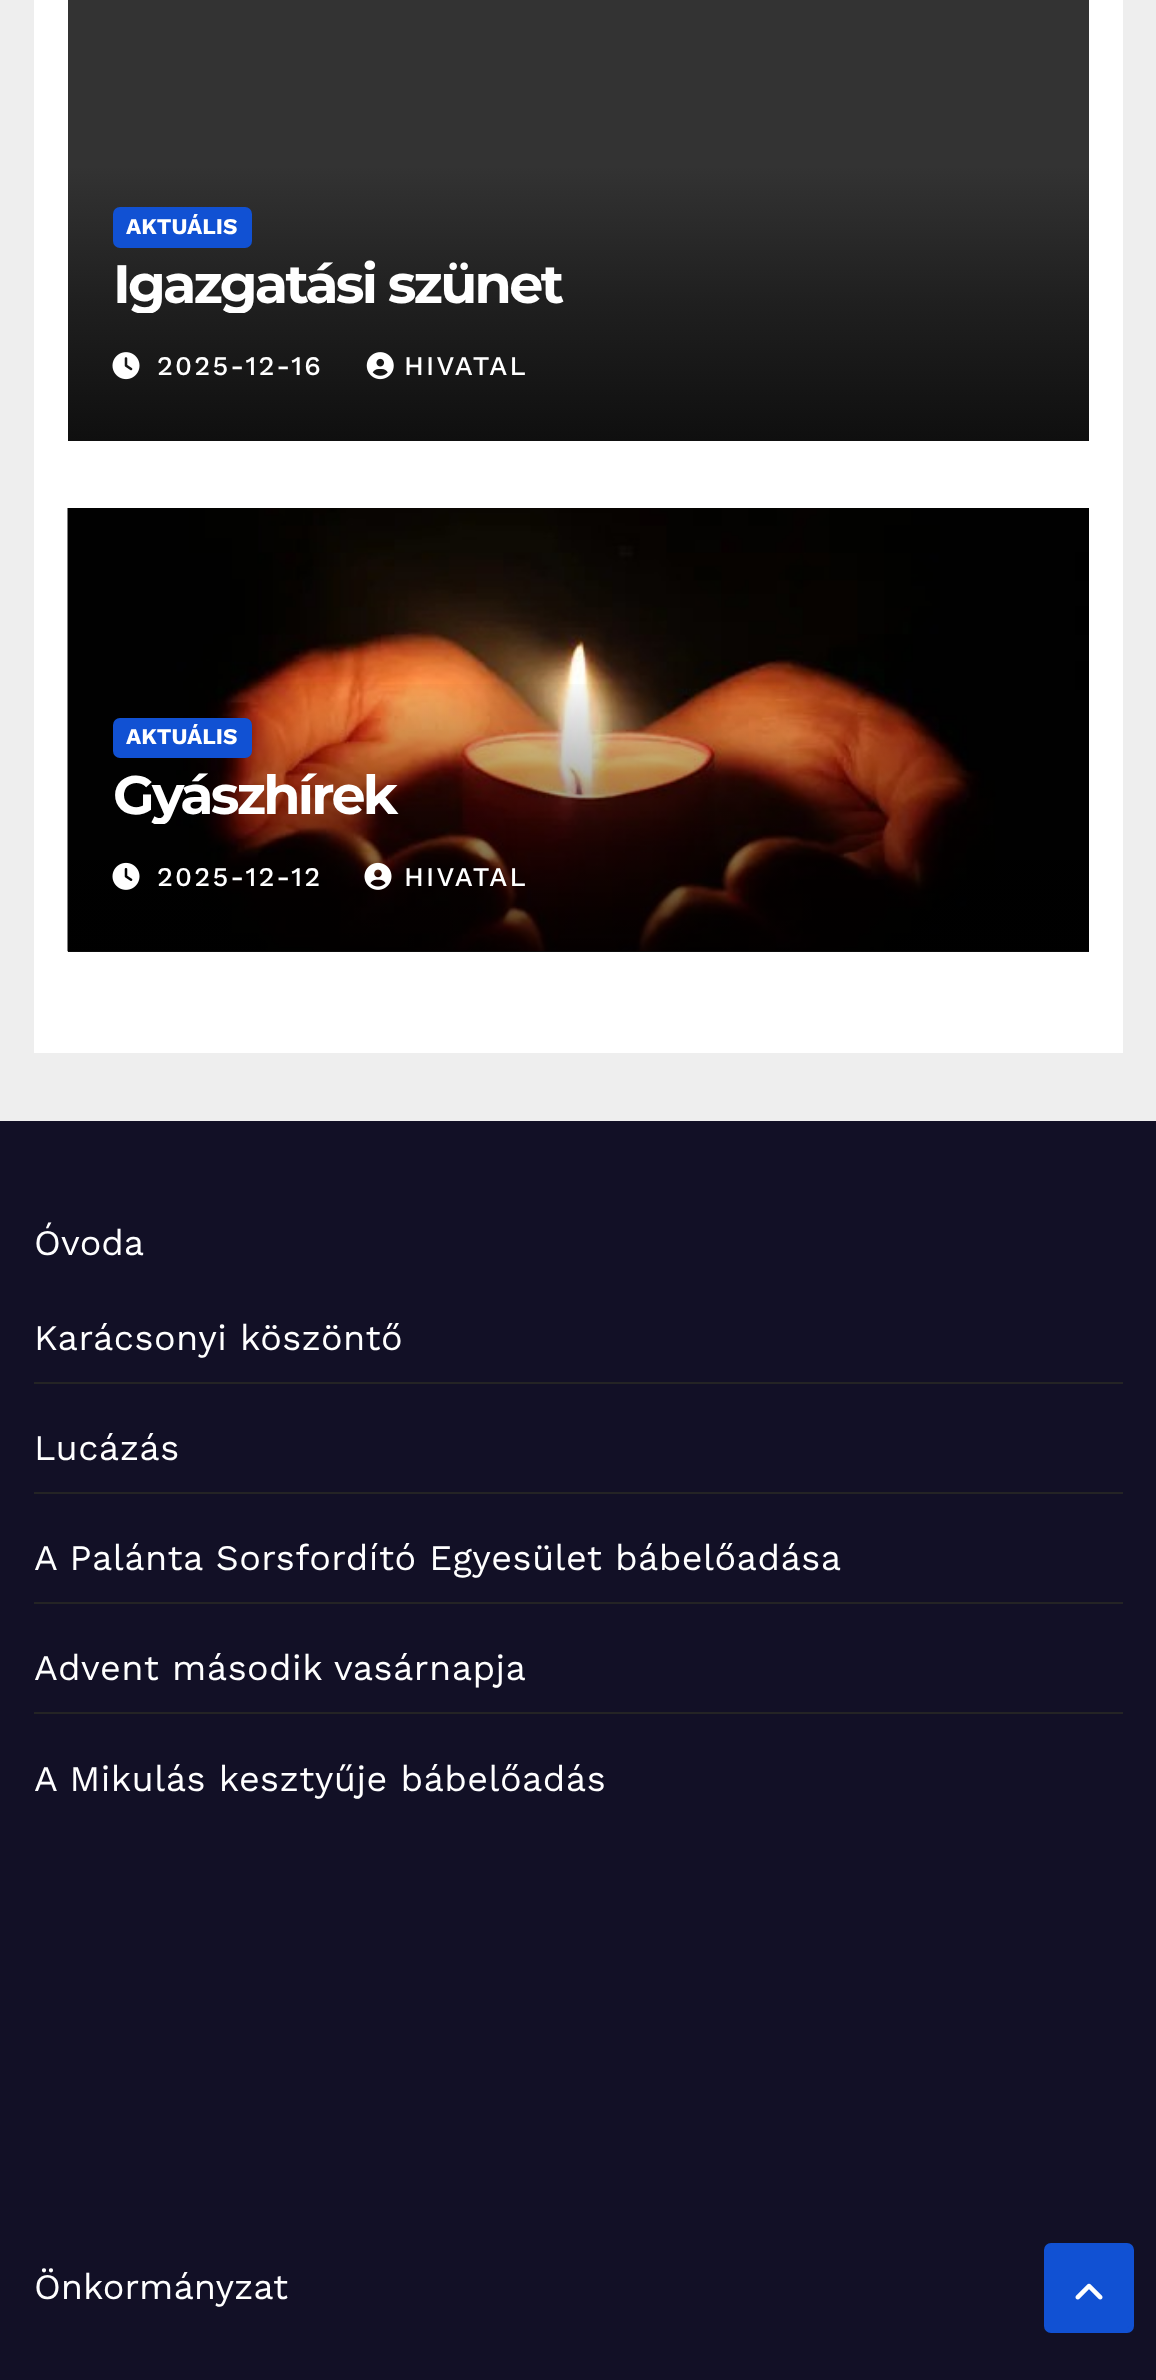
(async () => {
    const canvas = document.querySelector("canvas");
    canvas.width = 1156;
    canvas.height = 2380;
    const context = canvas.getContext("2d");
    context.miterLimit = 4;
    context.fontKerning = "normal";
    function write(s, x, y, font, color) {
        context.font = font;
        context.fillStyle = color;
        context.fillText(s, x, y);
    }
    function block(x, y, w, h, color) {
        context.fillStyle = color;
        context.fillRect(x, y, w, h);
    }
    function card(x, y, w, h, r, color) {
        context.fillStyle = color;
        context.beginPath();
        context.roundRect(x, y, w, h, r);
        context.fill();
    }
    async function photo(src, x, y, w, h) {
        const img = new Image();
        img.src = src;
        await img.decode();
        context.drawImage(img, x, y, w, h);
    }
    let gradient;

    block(0, 0, 1156, 2380, "rgb(238, 238, 238)");
    block(34, 0, 1089, 1053, "rgb(255, 255, 255)");
    block(68, 0, 1021, 167, "rgb(51, 51, 51)");
    gradient = context.createLinearGradient(578, 166, 578, 441);
    gradient.addColorStop(0, "rgb(51, 51, 51)");
    gradient.addColorStop(0.5, "rgb(31, 31, 31)");
    gradient.addColorStop(1, "rgb(15, 15, 15)");
    context.fillStyle = gradient;
    context.fillRect(68, 167, 1021, 274);
    card(113, 207, 139, 41, 7, "rgb(17, 81, 211)");
    write("AKTUÁLIS", 126, 234, "bold 22.5px Work Sans", "rgb(255, 255, 255)");
    context.save();
    context.beginPath();
    context.rect(113, 257, 931, 56);
    context.clip();
    context.letterSpacing = "-2.75px";
    write("Igazgatási szünet", 113, 303, "bold 54px Montserrat", "rgb(255, 255, 255)");
    context.restore();
    await photo("media/1.png", 112, 352, 28, 28);
    context.letterSpacing = "2.25px";
    write("2025-12-16", 157, 375, "500 27px Work Sans", "rgb(255, 255, 255)");
    await photo("media/2.png", 366, 352, 28, 28);
    write("HIVATAL", 404, 375, "500 27px Work Sans", "rgb(255, 255, 255)");
    block(68, 951, 1021, 1, "rgb(51, 51, 51)");
    await photo("media/3.png", 67, 508, 1022, 444);
    gradient = context.createLinearGradient(578, 677, 578, 952);
    gradient.addColorStop(0, "rgba(0, 0, 0, 0)");
    gradient.addColorStop(0.5, "rgba(0, 0, 0, 0.4)");
    gradient.addColorStop(1, "rgba(0, 0, 0, 0.7)");
    context.fillStyle = gradient;
    context.fillRect(68, 684, 1021, 268);
    card(113, 718, 139, 40, 7, "rgb(17, 81, 211)");
    context.letterSpacing = "0px";
    write("AKTUÁLIS", 126, 744, "bold 22.5px Work Sans", "rgb(255, 255, 255)");
    context.save();
    context.beginPath();
    context.rect(113, 767, 931, 57);
    context.clip();
    context.letterSpacing = "-2.75px";
    write("Gyászhírek", 113, 814, "bold 54px Montserrat", "rgb(255, 255, 255)");
    context.restore();
    await photo("media/4.png", 112, 862, 28, 28);
    context.letterSpacing = "2.25px";
    write("2025-12-12", 157, 886, "500 27px Work Sans", "rgb(255, 255, 255)");
    await photo("media/5.png", 364, 862, 28, 28);
    write("HIVATAL", 404, 886, "500 27px Work Sans", "rgb(255, 255, 255)");
    block(0, 1121, 1156, 1259, "rgb(18, 16, 38)");
    context.letterSpacing = "0px";
    write("Óvoda", 34, 1255, "36px Work Sans", "rgb(255, 255, 255)");
    block(34, 1382, 1089, 2, "rgb(36, 36, 37)");
    context.letterSpacing = "0.45px";
    write("Karácsonyi köszöntő", 34, 1350, "36px Work Sans", "rgb(255, 255, 255)");
    block(34, 1492, 1089, 2, "rgb(36, 36, 37)");
    write("Lucázás", 34, 1460, "36px Work Sans", "rgb(255, 255, 255)");
    block(34, 1602, 1089, 2, "rgb(36, 36, 37)");
    write("A Palánta Sorsfordító Egyesület bábelőadása", 34, 1570, "36px Work Sans", "rgb(255, 255, 255)");
    block(34, 1712, 1089, 2, "rgb(36, 36, 37)");
    write("Advent második vasárnapja", 34, 1680, "36px Work Sans", "rgb(255, 255, 255)");
    write("A Mikulás kesztyűje bábelőadás", 34, 1791, "36px Work Sans", "rgb(255, 255, 255)");
    context.letterSpacing = "0px";
    write("Önkormányzat", 34, 2299, "36px Work Sans", "rgb(255, 255, 255)");
    context.fillStyle = "rgb(17, 81, 211)";
    context.beginPath();
    context.roundRect(1046.5, 2245.5, 85, 85, 4.5);
    context.fill();
    context.strokeStyle = "rgb(17, 81, 211)";
    context.lineWidth = 5;
    context.stroke();
    await photo("media/6.png", 1075, 2283, 28, 17);
})();
